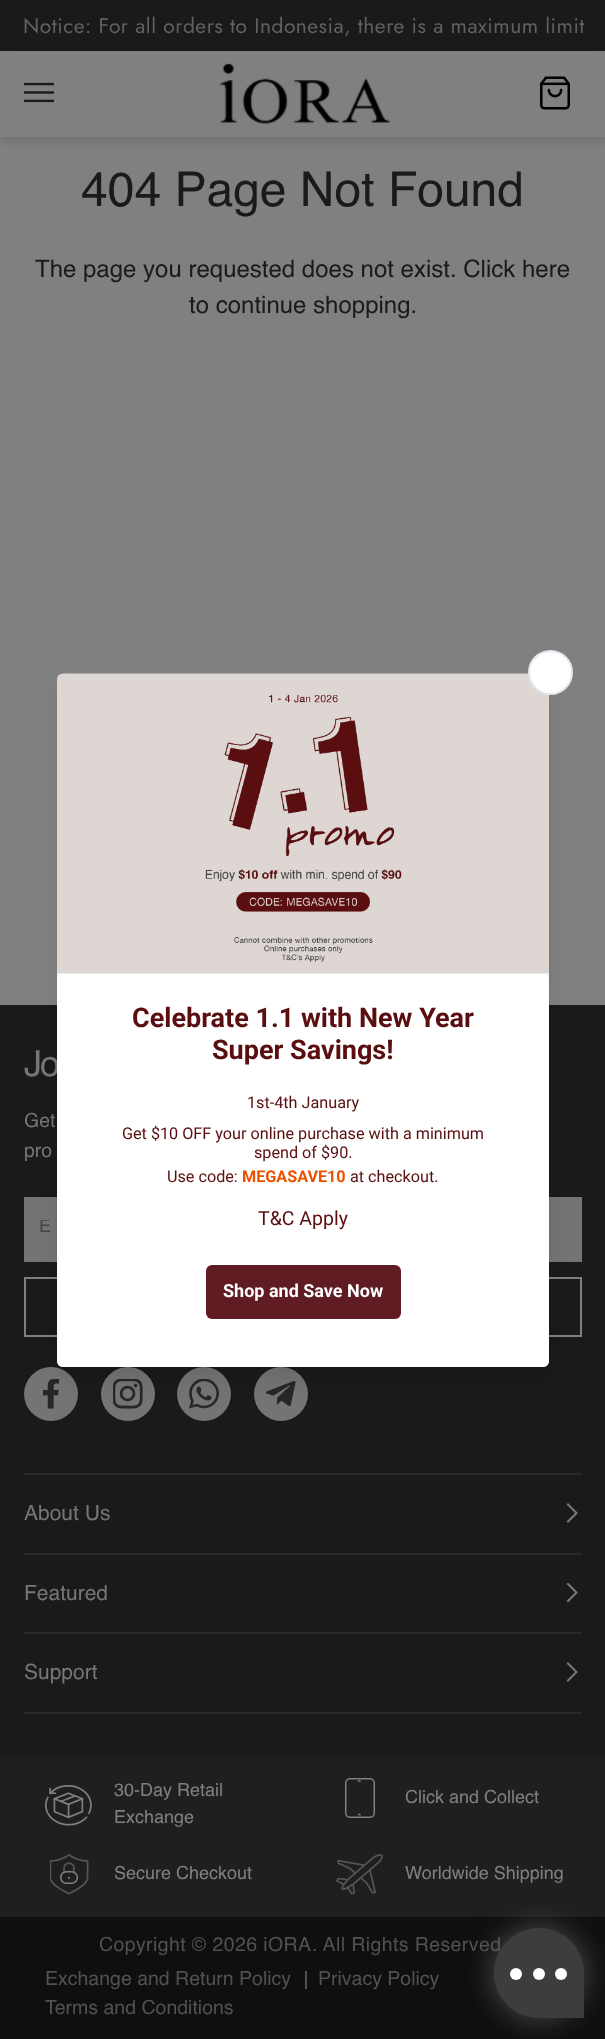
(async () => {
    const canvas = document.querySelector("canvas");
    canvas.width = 605;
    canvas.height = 2039;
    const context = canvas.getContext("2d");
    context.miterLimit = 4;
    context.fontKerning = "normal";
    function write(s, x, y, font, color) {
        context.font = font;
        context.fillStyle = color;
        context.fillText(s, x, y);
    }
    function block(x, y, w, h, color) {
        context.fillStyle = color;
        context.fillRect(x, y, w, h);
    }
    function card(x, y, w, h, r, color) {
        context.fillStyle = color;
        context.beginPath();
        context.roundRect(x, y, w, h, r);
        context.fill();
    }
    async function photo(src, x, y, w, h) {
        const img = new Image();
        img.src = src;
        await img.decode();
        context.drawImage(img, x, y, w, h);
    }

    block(0, 0, 605, 2039, "rgb(128, 128, 128)");
    block(0, 0, 605, 51, "rgb(26, 26, 26)");
    context.letterSpacing = "0.48px";
    write("Notice: For all orders to Indonesia, there is a maximum limit", 23, 33, "21px Jost", "rgb(97, 97, 97)");
    context.fillStyle = "rgba(0, 0, 0, 0.12)";
    context.filter = "blur(4.5px)";
    context.beginPath();
    context.rect(0, 56, 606, 85);
    context.fill();
    context.filter = "none";
    block(0, 52, 605, 85, "rgb(128, 128, 128)");
    await photo("media/1.png", 24, 82, 30, 21);
    await photo("media/2.png", 219, 63, 171, 61);
    await photo("media/3.png", 540, 76, 30, 34);
    context.letterSpacing = "0px";
    write("404 Page Not Found", 81, 206, "48px Helvetica", "rgb(26, 26, 26)");
    write("The page you requested does not exist. Click here", 35, 277, "24px Helvetica", "rgb(26, 26, 26)");
    write("to continue shopping.", 189, 313, "24px Helvetica", "rgb(26, 26, 26)");
    block(0, 1005, 605, 750, "rgb(26, 26, 26)");
    context.letterSpacing = "-2px";
    write("Jo", 24, 1076, "36px Helvetica", "rgb(118, 118, 118)");
    context.letterSpacing = "0px";
    write("Get", 24, 1127, "19.5px Helvetica", "rgb(118, 118, 118)");
    write("pro", 24, 1157, "19.5px Helvetica", "rgb(118, 118, 118)");
    block(24, 1197, 558, 65, "rgb(116, 116, 116)");
    context.save();
    context.beginPath();
    context.rect(39, 1220, 528, 18);
    context.clip();
    write("E", 39, 1232, "18px Helvetica", "rgb(70, 70, 70)");
    context.restore();
    context.strokeStyle = "rgb(128, 128, 128)";
    context.lineWidth = 2;
    context.strokeRect(25, 1278, 556, 58);
    context.beginPath();
    context.arc(51, 1394, 27, 0, Math.PI * 2);
    context.fill();
    await photo("media/4.png", 42, 1379, 18, 30);
    context.beginPath();
    context.arc(128, 1394, 27, 0, Math.PI * 2);
    context.fill();
    await photo("media/5.png", 113, 1379, 30, 30);
    context.beginPath();
    context.arc(204, 1394, 27, 0, Math.PI * 2);
    context.fill();
    await photo("media/6.png", 189, 1379, 30, 30);
    context.beginPath();
    context.arc(281, 1394, 27, 0, Math.PI * 2);
    context.fill();
    await photo("media/7.png", 266, 1381, 30, 25);
    block(24, 1473, 558, 2, "rgb(41, 41, 41)");
    block(24, 1553, 558, 2, "rgb(41, 41, 41)");
    write("About Us", 24, 1520, "21px Helvetica", "rgb(118, 118, 118)");
    context.beginPath();
    context.moveTo(575, 1513);
    context.lineTo(566.5, 1504.5);
    context.lineTo(568, 1503);
    context.lineTo(578, 1513);
    context.lineTo(568, 1523);
    context.lineTo(566.5, 1521.5);
    context.closePath();
    context.fill("evenodd");
    block(24, 1632, 558, 2, "rgb(41, 41, 41)");
    write("Featured", 24, 1600, "21px Helvetica", "rgb(118, 118, 118)");
    context.beginPath();
    context.moveTo(575, 1592.5);
    context.lineTo(566.5, 1584);
    context.lineTo(568, 1582.5);
    context.lineTo(578, 1592.5);
    context.lineTo(568, 1602.5);
    context.lineTo(566.5, 1601);
    context.closePath();
    context.fill("evenodd");
    block(24, 1712, 558, 2, "rgb(41, 41, 41)");
    write("Support", 24, 1679, "21px Helvetica", "rgb(118, 118, 118)");
    context.beginPath();
    context.moveTo(575, 1672);
    context.lineTo(566.5, 1663.5);
    context.lineTo(568, 1662);
    context.lineTo(578, 1672);
    context.lineTo(568, 1682);
    context.lineTo(566.5, 1680.5);
    context.closePath();
    context.fill("evenodd");
    context.fillStyle = "rgba(0, 0, 0, 0.1)";
    context.filter = "blur(11px)";
    context.beginPath();
    context.roundRect(62, 693, 483, 684, 1.5);
    context.fill();
    context.filter = "none";
    card(57, 674, 492, 693, 6, "rgb(255, 255, 255)");
    await photo("media/8.png", 57, 673, 492, 301);
    context.beginPath();
    context.arc(550.5, 672.5, 21.5, 0, Math.PI * 2);
    context.fill();
    context.strokeStyle = "rgb(226, 232, 240)";
    context.stroke();
    context.save();
    context.beginPath();
    context.rect(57, 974, 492, 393);
    context.clip();
    context.fillStyle = "rgba(0, 0, 0, 0.05)";
    context.filter = "blur(4.5px)";
    context.beginPath();
    context.roundRect(60, 983, 486, 387, 3);
    context.fill();
    context.filter = "none";
    context.fillStyle = "rgba(0, 0, 0, 0.12)";
    context.filter = "blur(15px)";
    context.beginPath();
    context.roundRect(62, 978, 483, 384, 1.5);
    context.fill();
    context.filter = "none";
    context.restore();
    card(57, 974, 492, 393, 6, "rgb(255, 255, 255)");
    write("Celebrate 1.1 with New Year", 132, 1027, "bold 27px Roboto", "rgb(90, 14, 15)");
    write("Super Savings!", 212, 1059, "bold 27px Roboto", "rgb(90, 14, 15)");
    write("1st-4th January", 247, 1108, "16.2px Roboto", "rgb(90, 14, 15)");
    write("Get $10 OFF your online purchase with a minimum", 122, 1139, "16.2px Roboto", "rgb(90, 14, 15)");
    write("spend of $90.", 254, 1158, "16.2px Roboto", "rgb(90, 14, 15)");
    write("Use code:", 167, 1182, "16.2px Roboto", "rgb(90, 14, 15)");
    write("MEGASAVE10", 242, 1182, "bold 16.2px Roboto", "rgb(235, 82, 0)");
    write("at checkout.", 350, 1182, "16.2px Roboto", "rgb(90, 14, 15)");
    write("T&C Apply", 258, 1225, "19.5px Roboto", "rgb(90, 14, 15)");
    card(206, 1265, 195, 54, 6, "rgb(95, 28, 35)");
    write("Shop and Save Now", 223, 1297, "bold 18px Roboto", "rgb(255, 255, 255)");
    block(0, 1755, 605, 162, "rgb(31, 31, 31)");
    await photo("media/9.png", 45, 1785, 47, 41);
    write("30-Day Retail", 114, 1796, "18px Helvetica", "rgb(128, 128, 128)");
    write("Exchange", 114, 1823, "18px Helvetica", "rgb(128, 128, 128)");
    context.beginPath();
    context.roundRect(345.75, 1778.75, 28.5, 38.5, 4.25);
    context.strokeStyle = "rgb(128, 128, 128)";
    context.lineWidth = 1.5;
    context.stroke();
    context.beginPath();
    context.moveTo(358.5, 1814.5);
    context.lineTo(360, 1814.5);
    context.moveTo(358.5, 1781);
    context.lineTo(360, 1781);
    context.lineWidth = 1.7;
    context.lineCap = "round";
    context.lineJoin = "round";
    context.stroke();
    write("Click and Collect", 405, 1803, "18px Helvetica", "rgb(128, 128, 128)");
    await photo("media/10.png", 50, 1854, 39, 41);
    write("Secure Checkout", 114, 1879, "18px Helvetica", "rgb(128, 128, 128)");
    await photo("media/11.png", 336, 1854, 47, 41);
    write("Worldwide Shipping", 405, 1879, "18px Helvetica", "rgb(128, 128, 128)");
    block(0, 1917, 605, 122, "rgb(15, 15, 15)");
    context.letterSpacing = "0.4px";
    write("Copyright © 2026 iORA", 99, 1951, "19.5px Helvetica", "rgb(81, 81, 81)");
    write(". All Rights Reserved", 312, 1951, "19.5px Helvetica", "rgb(81, 81, 81)");
    context.letterSpacing = "0px";
    write("Exchange and Return Policy", 45, 1985, "19.5px Helvetica", "rgb(81, 81, 81)");
    block(305, 1971, 2, 18, "rgb(81, 81, 81)");
    write("Privacy Policy", 318, 1985, "19.5px Helvetica", "rgb(81, 81, 81)");
    write("Terms and Conditions", 45, 2014, "19.5px Helvetica", "rgb(81, 81, 81)");
    context.fillStyle = "rgba(119, 119, 119, 0.64)";
    context.filter = "blur(15px)";
    context.beginPath();
    context.roundRect(494, 1928, 90, 90, 45);
    context.fill();
    context.filter = "none";
    context.fillStyle = "rgb(63, 60, 60)";
    context.beginPath();
    context.roundRect(494, 1928, 90, 90, [45, 45, 0, 45]);
    context.fill();
    context.fillStyle = "rgb(255, 255, 255)";
    context.beginPath();
    context.arc(516, 1974, 6, 0, Math.PI * 2);
    context.fill();
    context.beginPath();
    context.arc(539, 1974, 6, 0, Math.PI * 2);
    context.fill();
    context.beginPath();
    context.arc(561, 1974, 6, 0, Math.PI * 2);
    context.fill();
})();
